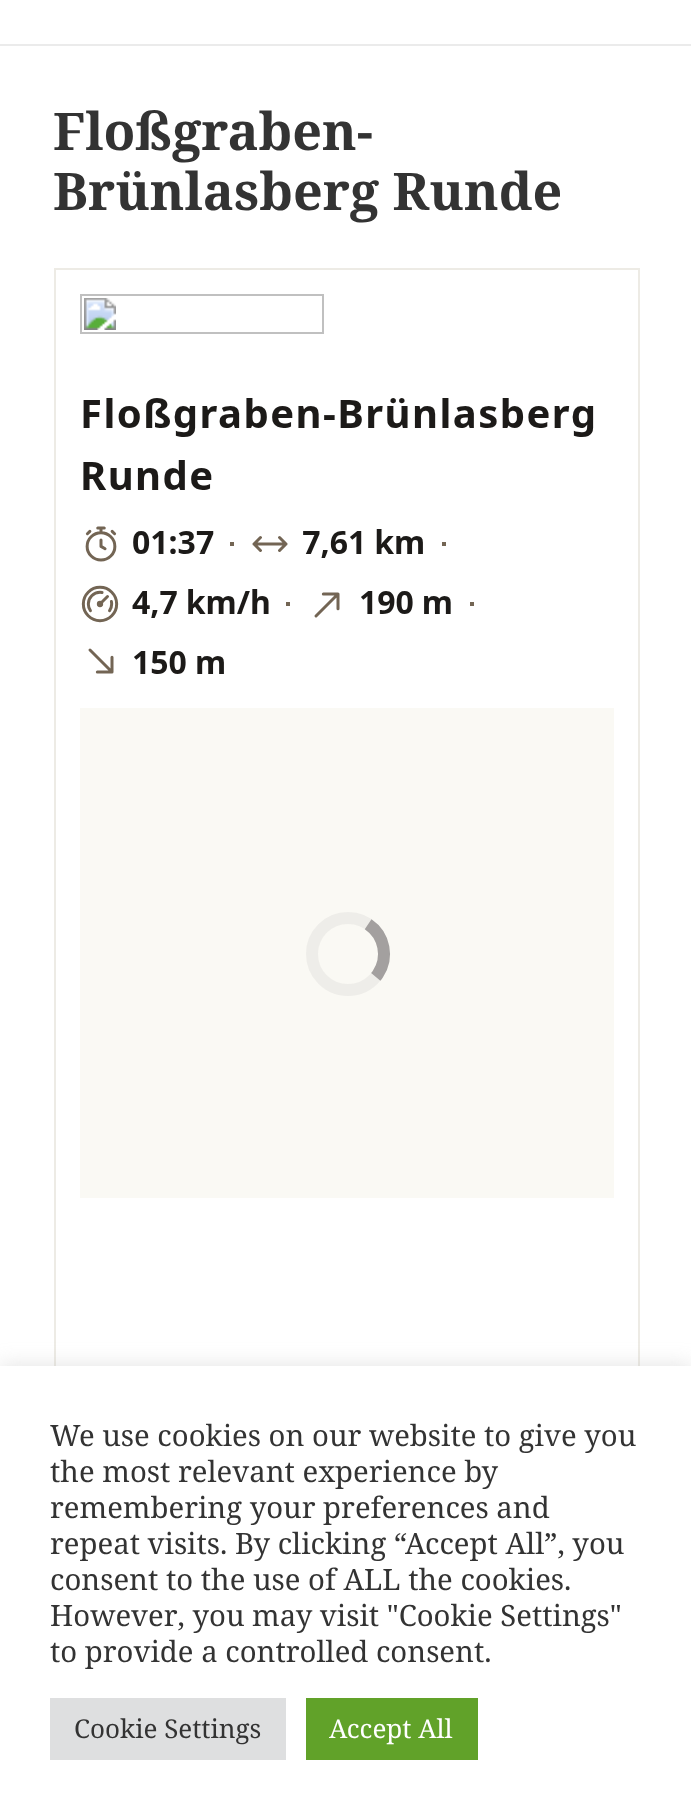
(async () => {
    const canvas = document.querySelector("canvas");
    canvas.width = 691;
    canvas.height = 1819;
    const context = canvas.getContext("2d");
    context.miterLimit = 4;
    context.fontKerning = "normal";
    function write(s, x, y, font, color) {
        context.font = font;
        context.fillStyle = color;
        context.fillText(s, x, y);
    }
    function block(x, y, w, h, color) {
        context.fillStyle = color;
        context.fillRect(x, y, w, h);
    }
    async function photo(src, x, y, w, h) {
        const img = new Image();
        img.src = src;
        await img.decode();
        context.drawImage(img, x, y, w, h);
    }

    block(0, 0, 691, 1819, "rgb(255, 255, 255)");
    block(0, 44, 691, 2, "rgb(235, 235, 235)");
    write("Floßgraben-", 53, 150, "bold 52px Noto Serif", "rgb(51, 51, 51)");
    write("Brünlasberg Runde", 53, 210, "bold 52px Noto Serif", "rgb(51, 51, 51)");
    await photo("media/1.png", 54, 268, 586, 1098);
    context.fillStyle = "rgba(172, 171, 171, 0.3)";
    context.filter = "blur(10px)";
    context.beginPath();
    context.rect(0, 1364, 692, 454);
    context.fill();
    context.filter = "none";
    block(0, 1366, 691, 453, "rgb(255, 255, 255)");
    write("We use cookies on our website to give you", 50, 1446, "29.3px Noto Serif", "rgb(51, 51, 51)");
    write("the most relevant experience by", 50, 1482, "29.3px Noto Serif", "rgb(51, 51, 51)");
    write("remembering your preferences and", 50, 1518, "29.3px Noto Serif", "rgb(51, 51, 51)");
    write("repeat visits. By clicking “Accept All”, you", 50, 1554, "29.3px Noto Serif", "rgb(51, 51, 51)");
    write("consent to the use of ALL the cookies.", 50, 1590, "29.3px Noto Serif", "rgb(51, 51, 51)");
    write("However, you may visit \"Cookie Settings\"", 50, 1626, "29.3px Noto Serif", "rgb(51, 51, 51)");
    write("to provide a controlled consent.", 50, 1662, "29.3px Noto Serif", "rgb(51, 51, 51)");
    block(50, 1698, 236, 62, "rgb(222, 223, 224)");
    write("Cookie Settings", 74, 1738, "26px Noto Serif", "rgb(51, 51, 51)");
    block(306, 1698, 172, 62, "rgb(97, 162, 41)");
    write("Accept All", 329, 1738, "26px Noto Serif", "rgb(255, 255, 255)");
})();
